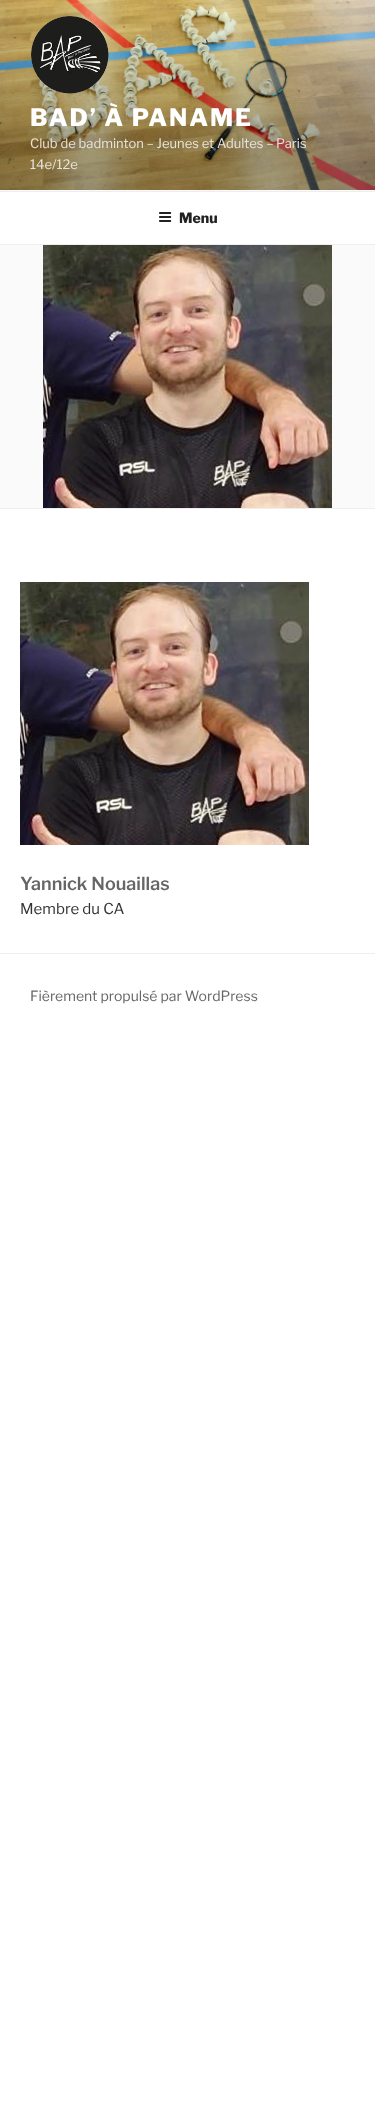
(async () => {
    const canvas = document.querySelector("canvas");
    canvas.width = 375;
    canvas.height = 2119;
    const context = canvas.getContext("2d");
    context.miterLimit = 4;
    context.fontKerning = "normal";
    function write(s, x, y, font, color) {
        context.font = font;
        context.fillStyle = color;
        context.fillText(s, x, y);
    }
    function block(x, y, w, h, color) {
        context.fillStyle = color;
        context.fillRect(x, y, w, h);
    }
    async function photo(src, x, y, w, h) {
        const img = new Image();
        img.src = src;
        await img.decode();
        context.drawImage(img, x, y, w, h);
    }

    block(0, 0, 375, 2119, "rgb(255, 255, 255)");
    block(0, 190, 375, 1, "rgb(250, 250, 250)");
    await photo("media/1.png", 0, 0, 375, 190);
    await photo("media/2.png", 31, 16, 78, 78);
    context.letterSpacing = "1.9px";
    write("BAD’ À PANAME", 30, 126, "100 24px Libre Franklin", "rgb(255, 255, 255)");
    context.letterSpacing = "0px";
    write("Club de badminton – Jeunes et Adultes –", 30, 148, "100 13px 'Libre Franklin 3'", "rgb(231, 227, 219)");
    write("Paris", 276, 148, "100 13px 'Libre Franklin 3'", "rgb(229, 221, 218)");
    write("14e/12e", 30, 169, "100 13px 'Libre Franklin 3'", "rgb(231, 227, 219)");
    block(0, 191, 375, 1, "rgb(238, 238, 238)");
    block(0, 244, 375, 1, "rgb(238, 238, 238)");
    await photo("media/3.png", 159, 212, 13, 10);
    write("Menu", 179, 223, "100 14px Libre Franklin", "rgb(34, 34, 34)");
    block(0, 245, 375, 263, "rgb(250, 250, 250)");
    block(0, 508, 375, 1, "rgb(238, 238, 238)");
    await photo("media/4.png", 43, 245, 289, 263);
    await photo("media/4.png", 20, 582, 289, 263);
    write("Yannick Nouaillas", 20, 890, "100 18px 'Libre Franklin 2'", "rgb(102, 102, 102)");
    write("Membre du CA", 20, 914, "100 15px 'Libre Franklin 3'", "rgb(51, 51, 51)");
    block(0, 953, 375, 1, "rgb(238, 238, 238)");
    write("Fièrement propulsé par WordPress", 30, 1001, "100 14px 'Libre Franklin 3'", "rgb(102, 102, 102)");
})();
